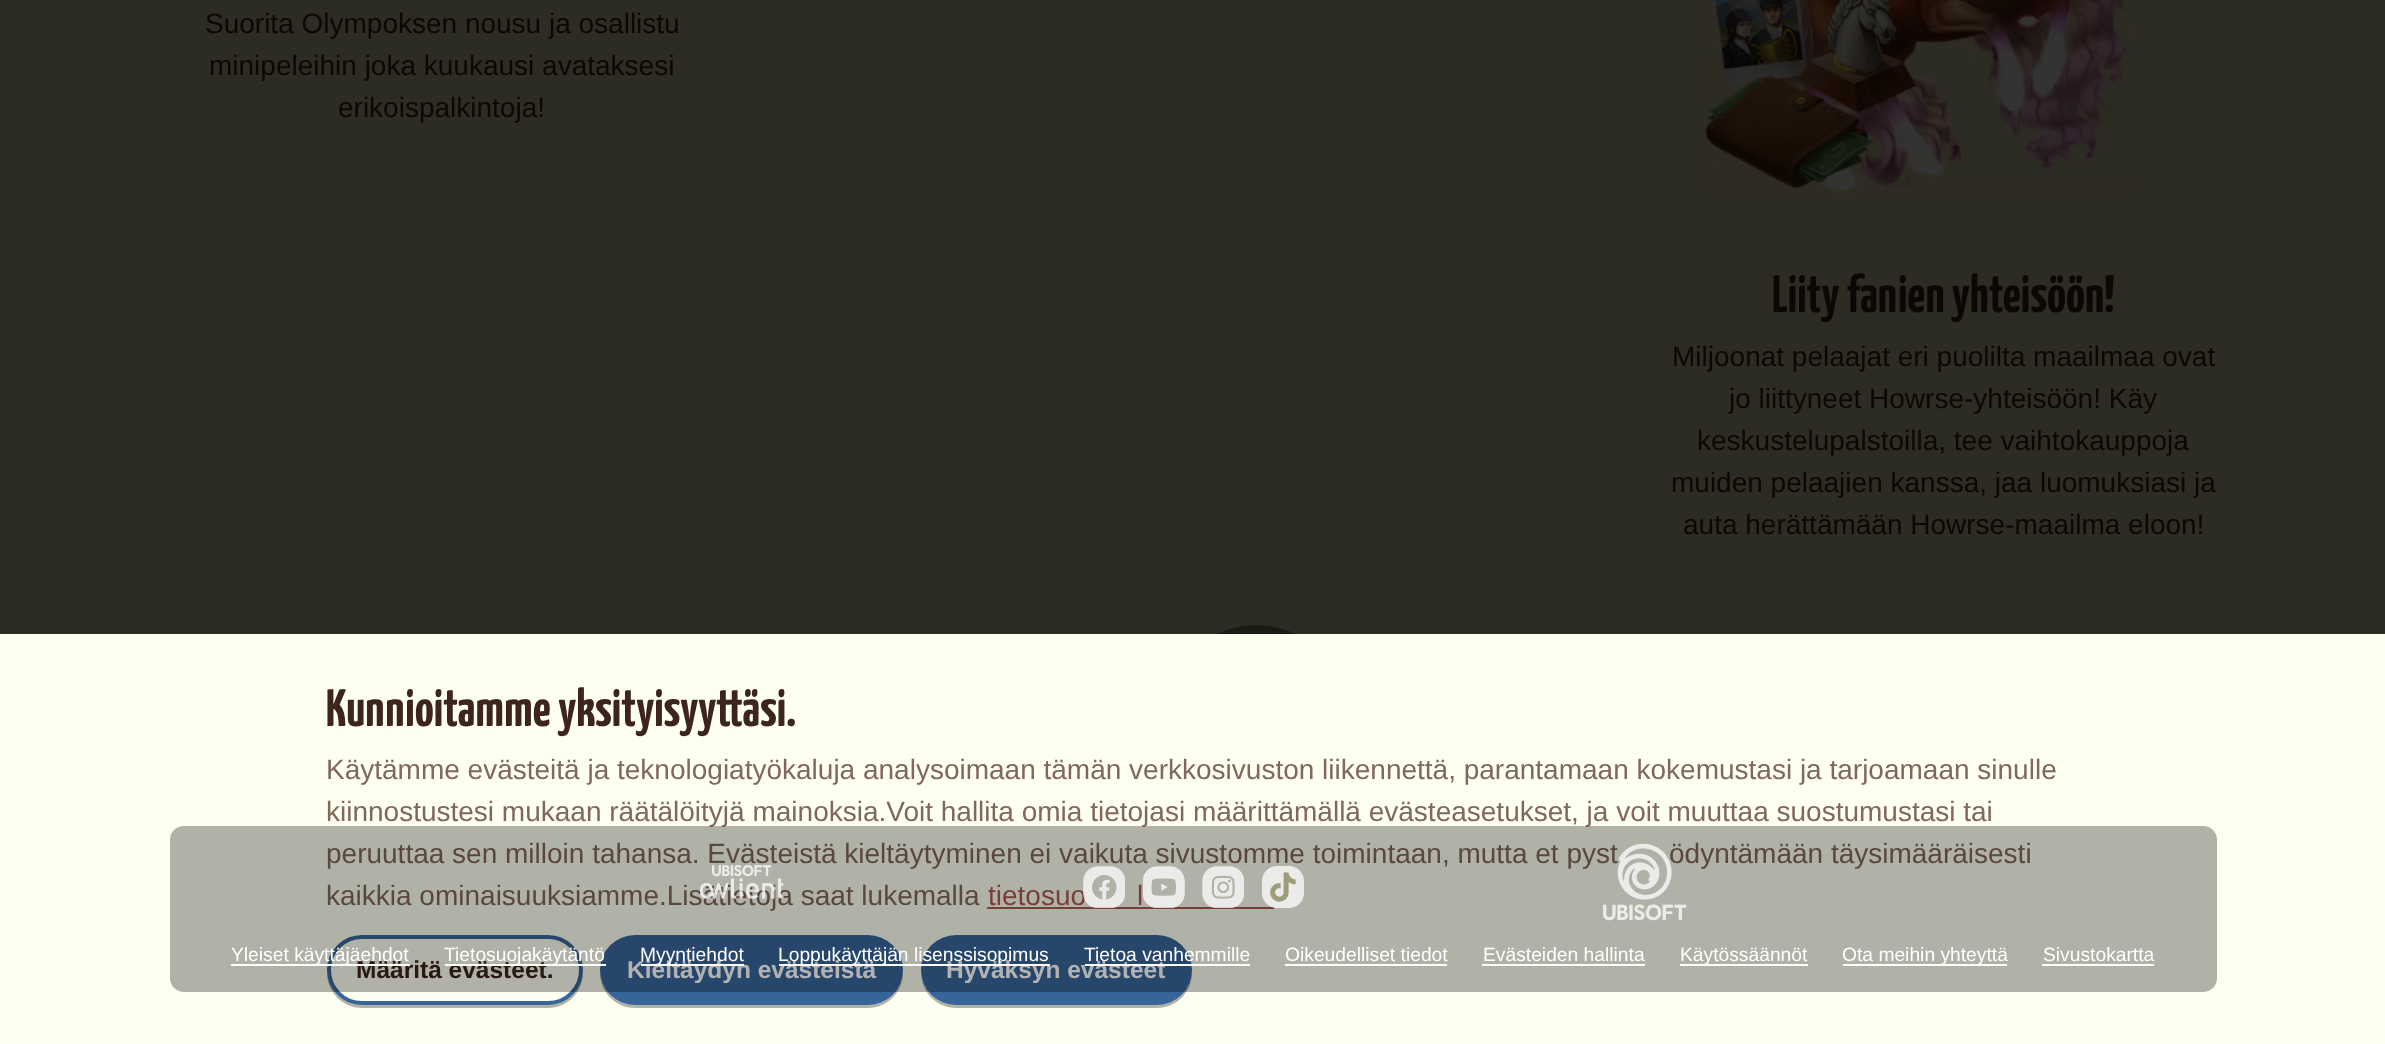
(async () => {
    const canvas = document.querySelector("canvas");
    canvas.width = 2385;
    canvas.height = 1044;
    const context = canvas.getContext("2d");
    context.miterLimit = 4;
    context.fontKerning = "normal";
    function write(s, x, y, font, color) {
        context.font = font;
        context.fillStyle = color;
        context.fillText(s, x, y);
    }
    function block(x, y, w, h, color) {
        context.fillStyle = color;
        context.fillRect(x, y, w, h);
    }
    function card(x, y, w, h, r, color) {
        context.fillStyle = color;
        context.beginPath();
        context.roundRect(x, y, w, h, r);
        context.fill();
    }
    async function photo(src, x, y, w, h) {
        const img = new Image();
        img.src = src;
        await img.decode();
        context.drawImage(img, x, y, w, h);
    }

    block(0, 0, 2385, 1044, "rgb(45, 44, 35)");
    write("Suorita Olympoksen nousu ja osallistu", 205, 33, "28px Liberation Sans", "rgb(12, 7, 5)");
    write("minipeleihin joka kuukausi avataksesi", 209, 75, "28px Liberation Sans", "rgb(12, 7, 5)");
    write("erikoispalkintoja!", 338, 117, "28px Liberation Sans", "rgb(12, 7, 5)");
    await photo("media/1.png", 1705, 0, 432, 194);
    write("Liity fanien yhteisöön!", 1772, 312, "bold 52.5px Yanone Kaffeesatz", "rgb(12, 7, 5)");
    write("Miljoonat pelaajat eri puolilta maailmaa ovat", 1672, 366, "28px Liberation Sans", "rgb(12, 7, 5)");
    write("jo liittyneet Howrse-yhteisöön! Käy", 1729, 408, "28px Liberation Sans", "rgb(12, 7, 5)");
    write("keskustelupalstoilla, tee vaihtokauppoja", 1697, 450, "28px Liberation Sans", "rgb(12, 7, 5)");
    write("muiden pelaajien kanssa, jaa luomuksiasi ja", 1671, 492, "28px Liberation Sans", "rgb(12, 7, 5)");
    write("auta herättämään Howrse-maailma eloon!", 1683, 534, "28px Liberation Sans", "rgb(12, 7, 5)");
    context.fillStyle = "rgb(27, 27, 21)";
    context.beginPath();
    context.moveTo(1256, 800);
    context.bezierCurveTo(1208, 800, 1169, 761, 1169, 712);
    context.bezierCurveTo(1169, 664, 1208, 625, 1256, 625);
    context.bezierCurveTo(1305, 625, 1344, 664, 1344, 712);
    context.bezierCurveTo(1344, 761, 1305, 800, 1256, 800);
    context.closePath();
    context.fill();
    block(0, 634, 2385, 410, "rgb(253, 255, 240)");
    write("Kunnioitamme yksityisyyttäsi.", 326, 726, "bold 52.5px Yanone Kaffeesatz", "rgb(61, 37, 27)");
    write("Käytämme evästeitä ja teknologiatyökaluja analysoimaan tämän verkkosivuston liikennettä, parantamaan kokemustasi ja tarjoamaan sinulle", 326, 779, "28px Liberation Sans", "rgb(130, 104, 91)");
    write("kiinnostustesi mukaan räätälöityjä mainoksia.Voit hallita omia tietojasi määrittämällä evästeasetukset, ja voit muuttaa suostumustasi tai", 326, 821, "28px Liberation Sans", "rgb(130, 104, 91)");
    write("peruuttaa sen milloin tahansa. Evästeistä kieltäytyminen ei vaikuta sivustomme toimintaan, mutta et pyst", 326, 863, "28px Liberation Sans", "rgb(130, 104, 91)");
    write("ödyntämään täysimääräisesti", 1669, 863, "28px Liberation Sans", "rgb(130, 104, 91)");
    write("kaikkia ominaisuuksiamme.Lisätietoja saat lukemalla", 326, 905, "28px Liberation Sans", "rgb(130, 104, 91)");
    write("tietosuo", 988, 905, "28px Liberation Sans", "rgb(173, 91, 80)");
    block(987, 907, 287, 2, "rgb(173, 91, 80)");
    write("l", 1137, 905, "28px Liberation Sans", "rgb(173, 91, 80)");
    context.fillStyle = "rgb(177, 179, 168)";
    context.beginPath();
    context.moveTo(327, 969);
    context.lineTo(327, 973);
    context.bezierCurveTo(327, 992, 343, 1008, 362, 1008);
    context.lineTo(548, 1008);
    context.bezierCurveTo(567, 1008, 583, 992, 583, 973);
    context.lineTo(583, 969);
    context.lineTo(583, 970);
    context.bezierCurveTo(583, 989, 567, 1004, 548, 1004);
    context.lineTo(362, 1004);
    context.bezierCurveTo(343, 1004, 327, 989, 327, 970);
    context.closePath();
    context.fill();
    context.fillStyle = "rgb(253, 255, 240)";
    context.beginPath();
    context.roundRect(329, 937, 252, 66, 33);
    context.fill();
    context.strokeStyle = "rgb(55, 101, 154)";
    context.lineWidth = 4;
    context.stroke();
    write("Määritä evästeet.", 356, 978, "bold 24.5px Liberation Sans", "rgb(61, 37, 27)");
    context.fillStyle = "rgb(177, 179, 168)";
    context.beginPath();
    context.moveTo(600, 969);
    context.lineTo(600, 973);
    context.bezierCurveTo(600, 992, 616, 1008, 635, 1008);
    context.lineTo(868, 1008);
    context.bezierCurveTo(887, 1008, 903, 992, 903, 973);
    context.lineTo(903, 971);
    context.bezierCurveTo(902, 990, 887, 1004, 868, 1004);
    context.lineTo(635, 1004);
    context.bezierCurveTo(616, 1004, 600, 989, 600, 970);
    context.closePath();
    context.fill();
    card(600, 935, 303, 70, 35, "rgb(55, 101, 154)");
    write("Kieltäydyn evästeistä", 627, 978, "bold 24.5px Liberation Sans", "rgb(255, 255, 255)");
    context.fillStyle = "rgb(177, 179, 168)";
    context.beginPath();
    context.moveTo(921, 976);
    context.bezierCurveTo(923, 994, 938, 1008, 956, 1008);
    context.lineTo(1157, 1008);
    context.bezierCurveTo(1176, 1008, 1192, 992, 1192, 973);
    context.lineTo(1192, 969);
    context.lineTo(1192, 970);
    context.bezierCurveTo(1192, 989, 1176, 1004, 1157, 1004);
    context.lineTo(956, 1004);
    context.bezierCurveTo(938, 1004, 924, 992, 921, 976);
    context.closePath();
    context.fill();
    card(921, 935, 271, 70, 35, "rgb(55, 101, 154)");
    write("Hyväksyn evästeet", 946, 978, "bold 24.5px Liberation Sans", "rgb(255, 255, 255)");
    card(170, 826, 2047, 166, 14, "rgba(0, 0, 0, 0.3)");
    await photo("media/2.png", 700, 865, 84, 34);
    await photo("media/3.png", 1083, 866, 42, 42);
    await photo("media/4.png", 1143, 866, 42, 42);
    await photo("media/5.png", 1202, 866, 42, 42);
    await photo("media/6.png", 1262, 866, 42, 42);
    await photo("media/7.png", 1603, 843, 84, 78);
    write("Yleiset käyttäjäehdot", 231, 961, "19.25px Liberation Sans", "rgb(255, 255, 255)");
    block(231, 964, 179, 2, "rgb(255, 255, 255)");
    write("Tietosuojakäytäntö", 444, 961, "19.25px Liberation Sans", "rgb(255, 255, 255)");
    block(445, 964, 161, 2, "rgb(255, 255, 255)");
    write("Myyntiehdot", 640, 961, "19.25px Liberation Sans", "rgb(255, 255, 255)");
    block(641, 964, 103, 2, "rgb(255, 255, 255)");
    write("Loppukäyttäjän lisenssisopimus", 778, 961, "19.25px Liberation Sans", "rgb(255, 255, 255)");
    block(779, 964, 271, 2, "rgb(255, 255, 255)");
    write("Tietoa vanhemmille", 1084, 961, "19.25px Liberation Sans", "rgb(255, 255, 255)");
    block(1085, 964, 165, 2, "rgb(255, 255, 255)");
    write("Oikeudelliset tiedot", 1285, 961, "19.25px Liberation Sans", "rgb(255, 255, 255)");
    block(1285, 964, 162, 2, "rgb(255, 255, 255)");
    write("Evästeiden hallinta", 1483, 961, "19.25px Liberation Sans", "rgb(255, 255, 255)");
    block(1482, 964, 163, 2, "rgb(255, 255, 255)");
    write("Käytössäännöt", 1680, 961, "19.25px Liberation Sans", "rgb(255, 255, 255)");
    block(1680, 964, 128, 2, "rgb(255, 255, 255)");
    write("Ota meihin yhteyttä", 1842, 961, "19.25px Liberation Sans", "rgb(255, 255, 255)");
    block(1843, 964, 164, 2, "rgb(255, 255, 255)");
    write("Sivustokartta", 2043, 961, "19.25px Liberation Sans", "rgb(255, 255, 255)");
    block(2042, 964, 112, 2, "rgb(255, 255, 255)");
})();
